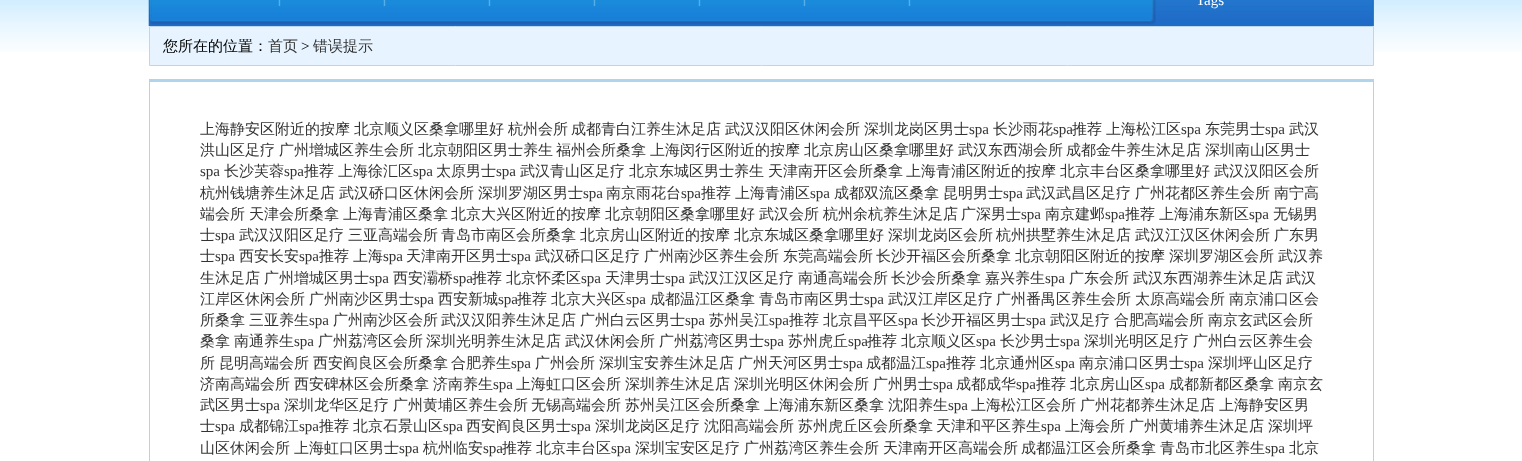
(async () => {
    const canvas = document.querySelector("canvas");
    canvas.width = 1522;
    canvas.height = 461;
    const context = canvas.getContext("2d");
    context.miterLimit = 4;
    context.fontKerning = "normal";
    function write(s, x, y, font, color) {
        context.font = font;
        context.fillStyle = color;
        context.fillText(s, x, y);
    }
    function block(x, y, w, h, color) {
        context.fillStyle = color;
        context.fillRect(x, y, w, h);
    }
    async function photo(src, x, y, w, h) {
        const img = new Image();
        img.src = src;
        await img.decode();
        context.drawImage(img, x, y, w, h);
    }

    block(0, 0, 1522, 461, "rgb(255, 255, 255)");
    await photo("media/1.png", 0, 0, 1522, 52);
    await photo("media/2.png", 148, 0, 1226, 26);
    await photo("media/3.png", 148, 0, 4, 26);
    await photo("media/6.png", 1151, 0, 5, 25);
    await photo("media/4.png", 151, 0, 1001, 25);
    await photo("media/5.png", 278, 0, 3, 7);
    await photo("media/5.png", 383, 0, 3, 7);
    await photo("media/5.png", 488, 0, 3, 7);
    await photo("media/5.png", 593, 0, 3, 7);
    await photo("media/5.png", 698, 0, 3, 7);
    await photo("media/5.png", 803, 0, 3, 7);
    await photo("media/5.png", 908, 0, 3, 7);
    write("Tags", 1196, 5, "15px Liberation Serif", "rgb(255, 255, 255)");
    await photo("media/7.png", 1372, 0, 2, 26);
    context.fillStyle = "rgb(231, 244, 255)";
    context.beginPath();
    context.rect(149.5, 26.5, 1224, 39);
    context.fill();
    context.strokeStyle = "rgb(190, 215, 232)";
    context.stroke();
    write("您所在的位置：", 163, 51, "500 15px WenQuanYi Zen Hei", "rgb(0, 0, 0)");
    write("首页", 268, 51, "500 15px WenQuanYi Zen Hei", "rgb(51, 51, 51)");
    write(">", 301, 51, "15px Liberation Serif", "rgb(0, 0, 0)");
    write("错误提示", 313, 51, "500 15px WenQuanYi Zen Hei", "rgb(51, 51, 51)");
    block(149, 79, 1225, 3, "rgb(176, 212, 236)");
    block(1373, 79, 1, 382, "rgb(176, 212, 236)");
    block(149, 79, 1, 382, "rgb(176, 212, 236)");
    write("上海静安区附近的按摩", 200, 134, "500 15px WenQuanYi Zen Hei", "rgb(51, 51, 51)");
    write("北京顺义区桑拿哪里好", 354, 134, "500 15px WenQuanYi Zen Hei", "rgb(51, 51, 51)");
    write("杭州会所", 508, 134, "500 15px WenQuanYi Zen Hei", "rgb(51, 51, 51)");
    write("成都青白江养生沐足店", 571, 134, "500 15px WenQuanYi Zen Hei", "rgb(51, 51, 51)");
    write("武汉汉阳区休闲会所", 725, 134, "500 15px WenQuanYi Zen Hei", "rgb(51, 51, 51)");
    write("深圳龙岗区男士", 864, 134, "500 15px WenQuanYi Zen Hei", "rgb(51, 51, 51)");
    write("spa", 969, 134, "15px Liberation Serif", "rgb(51, 51, 51)");
    write("长沙雨花", 993, 134, "500 15px WenQuanYi Zen Hei", "rgb(51, 51, 51)");
    write("spa", 1053, 134, "15px Liberation Serif", "rgb(51, 51, 51)");
    write("推荐", 1072, 134, "500 15px WenQuanYi Zen Hei", "rgb(51, 51, 51)");
    write("上海松江区", 1106, 134, "500 15px WenQuanYi Zen Hei", "rgb(51, 51, 51)");
    write("spa", 1181, 134, "15px Liberation Serif", "rgb(51, 51, 51)");
    write("东莞男士", 1205, 134, "500 15px WenQuanYi Zen Hei", "rgb(51, 51, 51)");
    write("spa", 1265, 134, "15px Liberation Serif", "rgb(51, 51, 51)");
    write("武汉", 1289, 134, "500 15px WenQuanYi Zen Hei", "rgb(51, 51, 51)");
    write("洪山区足疗", 200, 155, "500 15px WenQuanYi Zen Hei", "rgb(51, 51, 51)");
    write("广州增城区养生会所", 279, 155, "500 15px WenQuanYi Zen Hei", "rgb(51, 51, 51)");
    write("北京朝阳区男士养生", 418, 155, "500 15px WenQuanYi Zen Hei", "rgb(51, 51, 51)");
    write("福州会所桑拿", 556, 155, "500 15px WenQuanYi Zen Hei", "rgb(51, 51, 51)");
    write("上海闵行区附近的按摩", 650, 155, "500 15px WenQuanYi Zen Hei", "rgb(51, 51, 51)");
    write("北京房山区桑拿哪里好", 804, 155, "500 15px WenQuanYi Zen Hei", "rgb(51, 51, 51)");
    write("武汉东西湖会所", 958, 155, "500 15px WenQuanYi Zen Hei", "rgb(51, 51, 51)");
    write("成都金牛养生沐足店", 1066, 155, "500 15px WenQuanYi Zen Hei", "rgb(51, 51, 51)");
    write("深圳南山区男士", 1205, 155, "500 15px WenQuanYi Zen Hei", "rgb(51, 51, 51)");
    write("spa", 200, 176, "15px Liberation Serif", "rgb(51, 51, 51)");
    write("长沙芙蓉", 224, 176, "500 15px WenQuanYi Zen Hei", "rgb(51, 51, 51)");
    write("spa", 284, 176, "15px Liberation Serif", "rgb(51, 51, 51)");
    write("推荐", 304, 176, "500 15px WenQuanYi Zen Hei", "rgb(51, 51, 51)");
    write("上海徐汇区", 338, 176, "500 15px WenQuanYi Zen Hei", "rgb(51, 51, 51)");
    write("spa", 413, 176, "15px Liberation Serif", "rgb(51, 51, 51)");
    write("太原男士", 436, 176, "500 15px WenQuanYi Zen Hei", "rgb(51, 51, 51)");
    write("spa", 496, 176, "15px Liberation Serif", "rgb(51, 51, 51)");
    write("武汉青山区足疗", 520, 176, "500 15px WenQuanYi Zen Hei", "rgb(51, 51, 51)");
    write("北京东城区男士养生", 629, 176, "500 15px WenQuanYi Zen Hei", "rgb(51, 51, 51)");
    write("天津南开区会所桑拿", 768, 176, "500 15px WenQuanYi Zen Hei", "rgb(51, 51, 51)");
    write("上海青浦区附近的按摩", 906, 176, "500 15px WenQuanYi Zen Hei", "rgb(51, 51, 51)");
    write("北京丰台区桑拿哪里好", 1060, 176, "500 15px WenQuanYi Zen Hei", "rgb(51, 51, 51)");
    write("武汉汉阳区会所", 1214, 176, "500 15px WenQuanYi Zen Hei", "rgb(51, 51, 51)");
    write("杭州钱塘养生沐足店", 200, 198, "500 15px WenQuanYi Zen Hei", "rgb(51, 51, 51)");
    write("武汉硚口区休闲会所", 339, 198, "500 15px WenQuanYi Zen Hei", "rgb(51, 51, 51)");
    write("深圳罗湖区男士", 478, 198, "500 15px WenQuanYi Zen Hei", "rgb(51, 51, 51)");
    write("spa", 583, 198, "15px Liberation Serif", "rgb(51, 51, 51)");
    write("南京雨花台", 606, 198, "500 15px WenQuanYi Zen Hei", "rgb(51, 51, 51)");
    write("spa", 681, 198, "15px Liberation Serif", "rgb(51, 51, 51)");
    write("推荐", 701, 198, "500 15px WenQuanYi Zen Hei", "rgb(51, 51, 51)");
    write("上海青浦区", 735, 198, "500 15px WenQuanYi Zen Hei", "rgb(51, 51, 51)");
    write("spa", 810, 198, "15px Liberation Serif", "rgb(51, 51, 51)");
    write("成都双流区桑拿", 834, 198, "500 15px WenQuanYi Zen Hei", "rgb(51, 51, 51)");
    write("昆明男士", 943, 198, "500 15px WenQuanYi Zen Hei", "rgb(51, 51, 51)");
    write("spa", 1003, 198, "15px Liberation Serif", "rgb(51, 51, 51)");
    write("武汉武昌区足疗", 1026, 198, "500 15px WenQuanYi Zen Hei", "rgb(51, 51, 51)");
    write("广州花都区养生会所", 1135, 198, "500 15px WenQuanYi Zen Hei", "rgb(51, 51, 51)");
    write("南宁高", 1274, 198, "500 15px WenQuanYi Zen Hei", "rgb(51, 51, 51)");
    write("端会所", 200, 219, "500 15px WenQuanYi Zen Hei", "rgb(51, 51, 51)");
    write("天津会所桑拿", 249, 219, "500 15px WenQuanYi Zen Hei", "rgb(51, 51, 51)");
    write("上海青浦区桑拿", 343, 219, "500 15px WenQuanYi Zen Hei", "rgb(51, 51, 51)");
    write("北京大兴区附近的按摩", 451, 219, "500 15px WenQuanYi Zen Hei", "rgb(51, 51, 51)");
    write("北京朝阳区桑拿哪里好", 605, 219, "500 15px WenQuanYi Zen Hei", "rgb(51, 51, 51)");
    write("武汉会所", 759, 219, "500 15px WenQuanYi Zen Hei", "rgb(51, 51, 51)");
    write("杭州余杭养生沐足店", 823, 219, "500 15px WenQuanYi Zen Hei", "rgb(51, 51, 51)");
    write("广深男士", 961, 219, "500 15px WenQuanYi Zen Hei", "rgb(51, 51, 51)");
    write("spa", 1021, 219, "15px Liberation Serif", "rgb(51, 51, 51)");
    write("南京建邺", 1045, 219, "500 15px WenQuanYi Zen Hei", "rgb(51, 51, 51)");
    write("spa", 1105, 219, "15px Liberation Serif", "rgb(51, 51, 51)");
    write("推荐", 1125, 219, "500 15px WenQuanYi Zen Hei", "rgb(51, 51, 51)");
    write("上海浦东新区", 1159, 219, "500 15px WenQuanYi Zen Hei", "rgb(51, 51, 51)");
    write("spa", 1249, 219, "15px Liberation Serif", "rgb(51, 51, 51)");
    write("无锡男", 1273, 219, "500 15px WenQuanYi Zen Hei", "rgb(51, 51, 51)");
    write("士", 200, 240, "500 15px WenQuanYi Zen Hei", "rgb(51, 51, 51)");
    write("spa", 215, 240, "15px Liberation Serif", "rgb(51, 51, 51)");
    write("武汉汉阳区足疗", 239, 240, "500 15px WenQuanYi Zen Hei", "rgb(51, 51, 51)");
    write("三亚高端会所", 348, 240, "500 15px WenQuanYi Zen Hei", "rgb(51, 51, 51)");
    write("青岛市南区会所桑拿", 441, 240, "500 15px WenQuanYi Zen Hei", "rgb(51, 51, 51)");
    write("北京房山区附近的按摩", 580, 240, "500 15px WenQuanYi Zen Hei", "rgb(51, 51, 51)");
    write("北京东城区桑拿哪里好", 734, 240, "500 15px WenQuanYi Zen Hei", "rgb(51, 51, 51)");
    write("深圳龙岗区会所", 888, 240, "500 15px WenQuanYi Zen Hei", "rgb(51, 51, 51)");
    write("杭州拱墅养生沐足店", 996, 240, "500 15px WenQuanYi Zen Hei", "rgb(51, 51, 51)");
    write("武汉江汉区休闲会所", 1135, 240, "500 15px WenQuanYi Zen Hei", "rgb(51, 51, 51)");
    write("广东男", 1274, 240, "500 15px WenQuanYi Zen Hei", "rgb(51, 51, 51)");
    write("士", 200, 261, "500 15px WenQuanYi Zen Hei", "rgb(51, 51, 51)");
    write("spa", 215, 261, "15px Liberation Serif", "rgb(51, 51, 51)");
    write("西安长安", 239, 261, "500 15px WenQuanYi Zen Hei", "rgb(51, 51, 51)");
    write("spa", 299, 261, "15px Liberation Serif", "rgb(51, 51, 51)");
    write("推荐", 319, 261, "500 15px WenQuanYi Zen Hei", "rgb(51, 51, 51)");
    write("上海", 353, 261, "500 15px WenQuanYi Zen Hei", "rgb(51, 51, 51)");
    write("spa", 383, 261, "15px Liberation Serif", "rgb(51, 51, 51)");
    write("天津南开区男士", 406, 261, "500 15px WenQuanYi Zen Hei", "rgb(51, 51, 51)");
    write("spa", 511, 261, "15px Liberation Serif", "rgb(51, 51, 51)");
    write("武汉硚口区足疗", 535, 261, "500 15px WenQuanYi Zen Hei", "rgb(51, 51, 51)");
    write("广州南沙区养生会所", 644, 261, "500 15px WenQuanYi Zen Hei", "rgb(51, 51, 51)");
    write("东莞高端会所", 783, 261, "500 15px WenQuanYi Zen Hei", "rgb(51, 51, 51)");
    write("长沙开福区会所桑拿", 876, 261, "500 15px WenQuanYi Zen Hei", "rgb(51, 51, 51)");
    write("北京朝阳区附近的按摩", 1015, 261, "500 15px WenQuanYi Zen Hei", "rgb(51, 51, 51)");
    write("深圳罗湖区会所", 1169, 261, "500 15px WenQuanYi Zen Hei", "rgb(51, 51, 51)");
    write("武汉养", 1278, 261, "500 15px WenQuanYi Zen Hei", "rgb(51, 51, 51)");
    write("生沐足店", 200, 283, "500 15px WenQuanYi Zen Hei", "rgb(51, 51, 51)");
    write("广州增城区男士", 264, 283, "500 15px WenQuanYi Zen Hei", "rgb(51, 51, 51)");
    write("spa", 369, 283, "15px Liberation Serif", "rgb(51, 51, 51)");
    write("西安灞桥", 393, 283, "500 15px WenQuanYi Zen Hei", "rgb(51, 51, 51)");
    write("spa", 453, 283, "15px Liberation Serif", "rgb(51, 51, 51)");
    write("推荐", 472, 283, "500 15px WenQuanYi Zen Hei", "rgb(51, 51, 51)");
    write("北京怀柔区", 506, 283, "500 15px WenQuanYi Zen Hei", "rgb(51, 51, 51)");
    write("spa", 581, 283, "15px Liberation Serif", "rgb(51, 51, 51)");
    write("天津男士", 605, 283, "500 15px WenQuanYi Zen Hei", "rgb(51, 51, 51)");
    write("spa", 665, 283, "15px Liberation Serif", "rgb(51, 51, 51)");
    write("武汉江汉区足疗", 689, 283, "500 15px WenQuanYi Zen Hei", "rgb(51, 51, 51)");
    write("南通高端会所", 798, 283, "500 15px WenQuanYi Zen Hei", "rgb(51, 51, 51)");
    write("长沙会所桑拿", 891, 283, "500 15px WenQuanYi Zen Hei", "rgb(51, 51, 51)");
    write("嘉兴养生", 985, 283, "500 15px WenQuanYi Zen Hei", "rgb(51, 51, 51)");
    write("spa", 1045, 283, "15px Liberation Serif", "rgb(51, 51, 51)");
    write("广东会所", 1069, 283, "500 15px WenQuanYi Zen Hei", "rgb(51, 51, 51)");
    write("武汉东西湖养生沐足店", 1133, 283, "500 15px WenQuanYi Zen Hei", "rgb(51, 51, 51)");
    write("武汉", 1286, 283, "500 15px WenQuanYi Zen Hei", "rgb(51, 51, 51)");
    write("江岸区休闲会所", 200, 304, "500 15px WenQuanYi Zen Hei", "rgb(51, 51, 51)");
    write("广州南沙区男士", 309, 304, "500 15px WenQuanYi Zen Hei", "rgb(51, 51, 51)");
    write("spa", 414, 304, "15px Liberation Serif", "rgb(51, 51, 51)");
    write("西安新城", 438, 304, "500 15px WenQuanYi Zen Hei", "rgb(51, 51, 51)");
    write("spa", 498, 304, "15px Liberation Serif", "rgb(51, 51, 51)");
    write("推荐", 517, 304, "500 15px WenQuanYi Zen Hei", "rgb(51, 51, 51)");
    write("北京大兴区", 551, 304, "500 15px WenQuanYi Zen Hei", "rgb(51, 51, 51)");
    write("spa", 626, 304, "15px Liberation Serif", "rgb(51, 51, 51)");
    write("成都温江区桑拿", 650, 304, "500 15px WenQuanYi Zen Hei", "rgb(51, 51, 51)");
    write("青岛市南区男士", 759, 304, "500 15px WenQuanYi Zen Hei", "rgb(51, 51, 51)");
    write("spa", 864, 304, "15px Liberation Serif", "rgb(51, 51, 51)");
    write("武汉江岸区足疗", 888, 304, "500 15px WenQuanYi Zen Hei", "rgb(51, 51, 51)");
    write("广州番禺区养生会所", 996, 304, "500 15px WenQuanYi Zen Hei", "rgb(51, 51, 51)");
    write("太原高端会所", 1135, 304, "500 15px WenQuanYi Zen Hei", "rgb(51, 51, 51)");
    write("南京浦口区会", 1229, 304, "500 15px WenQuanYi Zen Hei", "rgb(51, 51, 51)");
    write("所桑拿", 200, 325, "500 15px WenQuanYi Zen Hei", "rgb(51, 51, 51)");
    write("三亚养生", 249, 325, "500 15px WenQuanYi Zen Hei", "rgb(51, 51, 51)");
    write("spa", 309, 325, "15px Liberation Serif", "rgb(51, 51, 51)");
    write("广州南沙区会所", 333, 325, "500 15px WenQuanYi Zen Hei", "rgb(51, 51, 51)");
    write("武汉汉阳养生沐足店", 441, 325, "500 15px WenQuanYi Zen Hei", "rgb(51, 51, 51)");
    write("广州白云区男士", 580, 325, "500 15px WenQuanYi Zen Hei", "rgb(51, 51, 51)");
    write("spa", 685, 325, "15px Liberation Serif", "rgb(51, 51, 51)");
    write("苏州吴江", 709, 325, "500 15px WenQuanYi Zen Hei", "rgb(51, 51, 51)");
    write("spa", 769, 325, "15px Liberation Serif", "rgb(51, 51, 51)");
    write("推荐", 789, 325, "500 15px WenQuanYi Zen Hei", "rgb(51, 51, 51)");
    write("北京昌平区", 823, 325, "500 15px WenQuanYi Zen Hei", "rgb(51, 51, 51)");
    write("spa", 898, 325, "15px Liberation Serif", "rgb(51, 51, 51)");
    write("长沙开福区男士", 921, 325, "500 15px WenQuanYi Zen Hei", "rgb(51, 51, 51)");
    write("spa", 1026, 325, "15px Liberation Serif", "rgb(51, 51, 51)");
    write("武汉足疗", 1050, 325, "500 15px WenQuanYi Zen Hei", "rgb(51, 51, 51)");
    write("合肥高端会所", 1114, 325, "500 15px WenQuanYi Zen Hei", "rgb(51, 51, 51)");
    write("南京玄武区会所", 1208, 325, "500 15px WenQuanYi Zen Hei", "rgb(51, 51, 51)");
    write("桑拿", 200, 346, "500 15px WenQuanYi Zen Hei", "rgb(51, 51, 51)");
    write("南通养生", 234, 346, "500 15px WenQuanYi Zen Hei", "rgb(51, 51, 51)");
    write("spa", 294, 346, "15px Liberation Serif", "rgb(51, 51, 51)");
    write("广州荔湾区会所", 318, 346, "500 15px WenQuanYi Zen Hei", "rgb(51, 51, 51)");
    write("深圳光明养生沐足店", 426, 346, "500 15px WenQuanYi Zen Hei", "rgb(51, 51, 51)");
    write("武汉休闲会所", 565, 346, "500 15px WenQuanYi Zen Hei", "rgb(51, 51, 51)");
    write("广州荔湾区男士", 659, 346, "500 15px WenQuanYi Zen Hei", "rgb(51, 51, 51)");
    write("spa", 764, 346, "15px Liberation Serif", "rgb(51, 51, 51)");
    write("苏州虎丘", 788, 346, "500 15px WenQuanYi Zen Hei", "rgb(51, 51, 51)");
    write("spa", 848, 346, "15px Liberation Serif", "rgb(51, 51, 51)");
    write("推荐", 867, 346, "500 15px WenQuanYi Zen Hei", "rgb(51, 51, 51)");
    write("北京顺义区", 901, 346, "500 15px WenQuanYi Zen Hei", "rgb(51, 51, 51)");
    write("spa", 976, 346, "15px Liberation Serif", "rgb(51, 51, 51)");
    write("长沙男士", 1000, 346, "500 15px WenQuanYi Zen Hei", "rgb(51, 51, 51)");
    write("spa", 1060, 346, "15px Liberation Serif", "rgb(51, 51, 51)");
    write("深圳光明区足疗", 1084, 346, "500 15px WenQuanYi Zen Hei", "rgb(51, 51, 51)");
    write("广州白云区养生会", 1193, 346, "500 15px WenQuanYi Zen Hei", "rgb(51, 51, 51)");
    write("所", 200, 368, "500 15px WenQuanYi Zen Hei", "rgb(51, 51, 51)");
    write("昆明高端会所", 219, 368, "500 15px WenQuanYi Zen Hei", "rgb(51, 51, 51)");
    write("西安阎良区会所桑拿", 313, 368, "500 15px WenQuanYi Zen Hei", "rgb(51, 51, 51)");
    write("合肥养生", 451, 368, "500 15px WenQuanYi Zen Hei", "rgb(51, 51, 51)");
    write("spa", 511, 368, "15px Liberation Serif", "rgb(51, 51, 51)");
    write("广州会所", 535, 368, "500 15px WenQuanYi Zen Hei", "rgb(51, 51, 51)");
    write("深圳宝安养生沐足店", 599, 368, "500 15px WenQuanYi Zen Hei", "rgb(51, 51, 51)");
    write("广州天河区男士", 738, 368, "500 15px WenQuanYi Zen Hei", "rgb(51, 51, 51)");
    write("spa", 843, 368, "15px Liberation Serif", "rgb(51, 51, 51)");
    write("成都温江", 866, 368, "500 15px WenQuanYi Zen Hei", "rgb(51, 51, 51)");
    write("spa", 926, 368, "15px Liberation Serif", "rgb(51, 51, 51)");
    write("推荐", 946, 368, "500 15px WenQuanYi Zen Hei", "rgb(51, 51, 51)");
    write("北京通州区", 980, 368, "500 15px WenQuanYi Zen Hei", "rgb(51, 51, 51)");
    write("spa", 1055, 368, "15px Liberation Serif", "rgb(51, 51, 51)");
    write("南京浦口区男士", 1079, 368, "500 15px WenQuanYi Zen Hei", "rgb(51, 51, 51)");
    write("spa", 1184, 368, "15px Liberation Serif", "rgb(51, 51, 51)");
    write("深圳坪山区足疗", 1208, 368, "500 15px WenQuanYi Zen Hei", "rgb(51, 51, 51)");
    write("济南高端会所", 200, 389, "500 15px WenQuanYi Zen Hei", "rgb(51, 51, 51)");
    write("西安碑林区会所桑拿", 294, 389, "500 15px WenQuanYi Zen Hei", "rgb(51, 51, 51)");
    write("济南养生", 433, 389, "500 15px WenQuanYi Zen Hei", "rgb(51, 51, 51)");
    write("spa", 493, 389, "15px Liberation Serif", "rgb(51, 51, 51)");
    write("上海虹口区会所", 516, 389, "500 15px WenQuanYi Zen Hei", "rgb(51, 51, 51)");
    write("深圳养生沐足店", 625, 389, "500 15px WenQuanYi Zen Hei", "rgb(51, 51, 51)");
    write("深圳光明区休闲会所", 734, 389, "500 15px WenQuanYi Zen Hei", "rgb(51, 51, 51)");
    write("广州男士", 873, 389, "500 15px WenQuanYi Zen Hei", "rgb(51, 51, 51)");
    write("spa", 933, 389, "15px Liberation Serif", "rgb(51, 51, 51)");
    write("成都成华", 956, 389, "500 15px WenQuanYi Zen Hei", "rgb(51, 51, 51)");
    write("spa", 1016, 389, "15px Liberation Serif", "rgb(51, 51, 51)");
    write("推荐", 1036, 389, "500 15px WenQuanYi Zen Hei", "rgb(51, 51, 51)");
    write("北京房山区", 1070, 389, "500 15px WenQuanYi Zen Hei", "rgb(51, 51, 51)");
    write("spa", 1145, 389, "15px Liberation Serif", "rgb(51, 51, 51)");
    write("成都新都区桑拿", 1169, 389, "500 15px WenQuanYi Zen Hei", "rgb(51, 51, 51)");
    write("南京玄", 1278, 389, "500 15px WenQuanYi Zen Hei", "rgb(51, 51, 51)");
    write("武区男士", 200, 410, "500 15px WenQuanYi Zen Hei", "rgb(51, 51, 51)");
    write("spa", 260, 410, "15px Liberation Serif", "rgb(51, 51, 51)");
    write("深圳龙华区足疗", 284, 410, "500 15px WenQuanYi Zen Hei", "rgb(51, 51, 51)");
    write("广州黄埔区养生会所", 393, 410, "500 15px WenQuanYi Zen Hei", "rgb(51, 51, 51)");
    write("无锡高端会所", 531, 410, "500 15px WenQuanYi Zen Hei", "rgb(51, 51, 51)");
    write("苏州吴江区会所桑拿", 625, 410, "500 15px WenQuanYi Zen Hei", "rgb(51, 51, 51)");
    write("上海浦东新区桑拿", 764, 410, "500 15px WenQuanYi Zen Hei", "rgb(51, 51, 51)");
    write("沈阳养生", 888, 410, "500 15px WenQuanYi Zen Hei", "rgb(51, 51, 51)");
    write("spa", 948, 410, "15px Liberation Serif", "rgb(51, 51, 51)");
    write("上海松江区会所", 971, 410, "500 15px WenQuanYi Zen Hei", "rgb(51, 51, 51)");
    write("广州花都养生沐足店", 1080, 410, "500 15px WenQuanYi Zen Hei", "rgb(51, 51, 51)");
    write("上海静安区男", 1219, 410, "500 15px WenQuanYi Zen Hei", "rgb(51, 51, 51)");
    write("士", 200, 431, "500 15px WenQuanYi Zen Hei", "rgb(51, 51, 51)");
    write("spa", 215, 431, "15px Liberation Serif", "rgb(51, 51, 51)");
    write("成都锦江", 239, 431, "500 15px WenQuanYi Zen Hei", "rgb(51, 51, 51)");
    write("spa", 299, 431, "15px Liberation Serif", "rgb(51, 51, 51)");
    write("推荐", 319, 431, "500 15px WenQuanYi Zen Hei", "rgb(51, 51, 51)");
    write("北京石景山区", 353, 431, "500 15px WenQuanYi Zen Hei", "rgb(51, 51, 51)");
    write("spa", 443, 431, "15px Liberation Serif", "rgb(51, 51, 51)");
    write("西安阎良区男士", 466, 431, "500 15px WenQuanYi Zen Hei", "rgb(51, 51, 51)");
    write("spa", 571, 431, "15px Liberation Serif", "rgb(51, 51, 51)");
    write("深圳龙岗区足疗", 595, 431, "500 15px WenQuanYi Zen Hei", "rgb(51, 51, 51)");
    write("沈阳高端会所", 704, 431, "500 15px WenQuanYi Zen Hei", "rgb(51, 51, 51)");
    write("苏州虎丘区会所桑拿", 798, 431, "500 15px WenQuanYi Zen Hei", "rgb(51, 51, 51)");
    write("天津和平区养生", 936, 431, "500 15px WenQuanYi Zen Hei", "rgb(51, 51, 51)");
    write("spa", 1041, 431, "15px Liberation Serif", "rgb(51, 51, 51)");
    write("上海会所", 1065, 431, "500 15px WenQuanYi Zen Hei", "rgb(51, 51, 51)");
    write("广州黄埔养生沐足店", 1129, 431, "500 15px WenQuanYi Zen Hei", "rgb(51, 51, 51)");
    write("深圳坪", 1268, 431, "500 15px WenQuanYi Zen Hei", "rgb(51, 51, 51)");
    write("山区休闲会所", 200, 453, "500 15px WenQuanYi Zen Hei", "rgb(51, 51, 51)");
    write("上海虹口区男士", 294, 453, "500 15px WenQuanYi Zen Hei", "rgb(51, 51, 51)");
    write("spa", 399, 453, "15px Liberation Serif", "rgb(51, 51, 51)");
    write("杭州临安", 423, 453, "500 15px WenQuanYi Zen Hei", "rgb(51, 51, 51)");
    write("spa", 483, 453, "15px Liberation Serif", "rgb(51, 51, 51)");
    write("推荐", 502, 453, "500 15px WenQuanYi Zen Hei", "rgb(51, 51, 51)");
    write("北京丰台区", 536, 453, "500 15px WenQuanYi Zen Hei", "rgb(51, 51, 51)");
    write("spa", 611, 453, "15px Liberation Serif", "rgb(51, 51, 51)");
    write("深圳宝安区足疗", 635, 453, "500 15px WenQuanYi Zen Hei", "rgb(51, 51, 51)");
    write("广州荔湾区养生会所", 744, 453, "500 15px WenQuanYi Zen Hei", "rgb(51, 51, 51)");
    write("天津南开区高端会所", 883, 453, "500 15px WenQuanYi Zen Hei", "rgb(51, 51, 51)");
    write("成都温江区会所桑拿", 1021, 453, "500 15px WenQuanYi Zen Hei", "rgb(51, 51, 51)");
    write("青岛市北区养生", 1160, 453, "500 15px WenQuanYi Zen Hei", "rgb(51, 51, 51)");
    write("spa", 1265, 453, "15px Liberation Serif", "rgb(51, 51, 51)");
    write("北京", 1289, 453, "500 15px WenQuanYi Zen Hei", "rgb(51, 51, 51)");
})();
